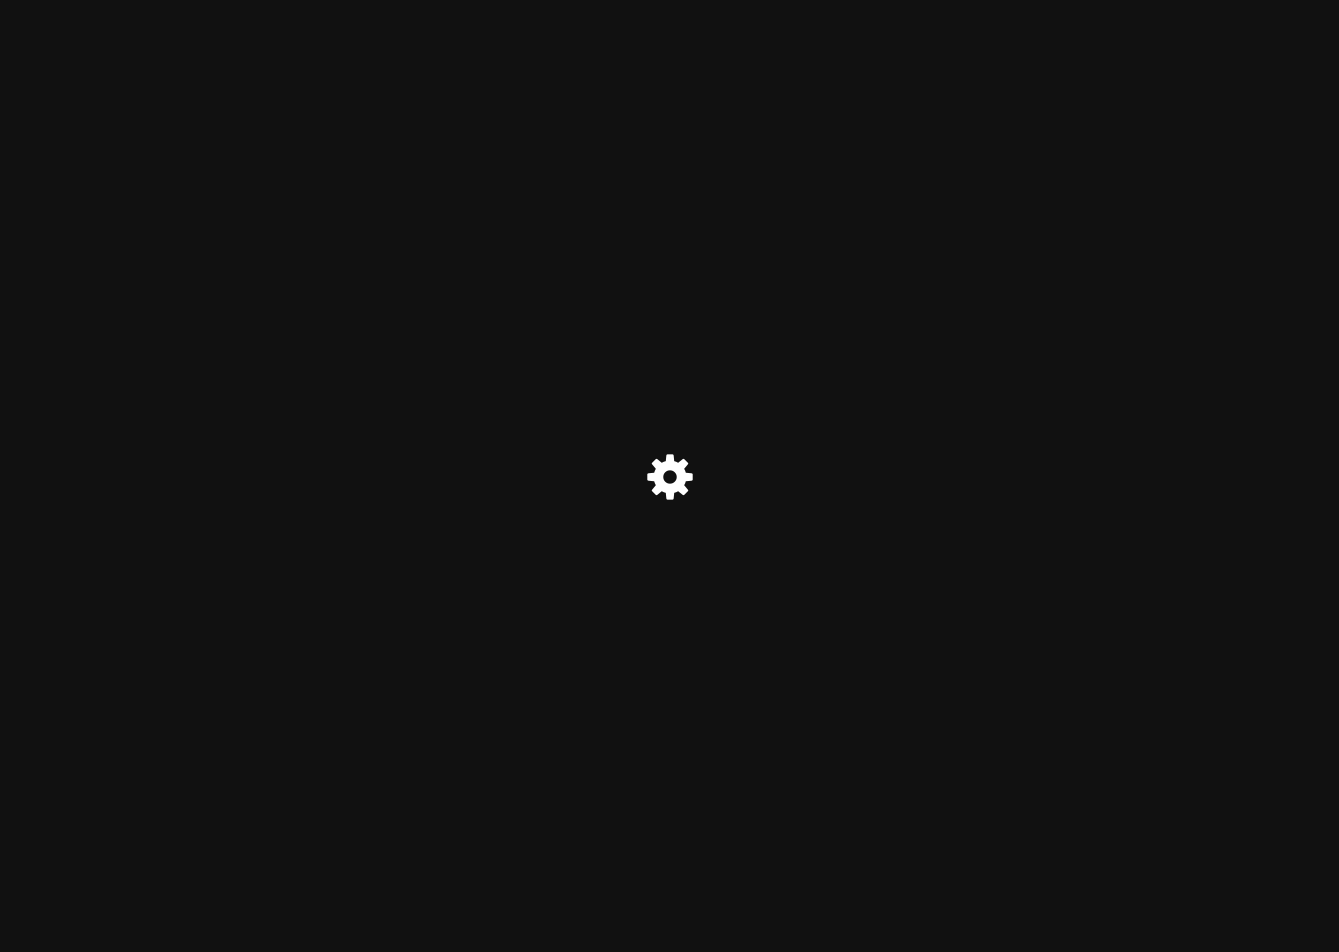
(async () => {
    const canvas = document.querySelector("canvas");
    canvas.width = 1339;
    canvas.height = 952;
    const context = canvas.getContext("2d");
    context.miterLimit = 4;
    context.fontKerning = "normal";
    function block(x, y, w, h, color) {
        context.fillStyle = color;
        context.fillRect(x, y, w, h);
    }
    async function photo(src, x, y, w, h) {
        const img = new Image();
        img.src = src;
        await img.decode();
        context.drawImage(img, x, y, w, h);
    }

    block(0, 0, 1339, 952, "rgb(17, 17, 17)");
    await photo("media/1.png", 647, 454, 46, 46);
})();
